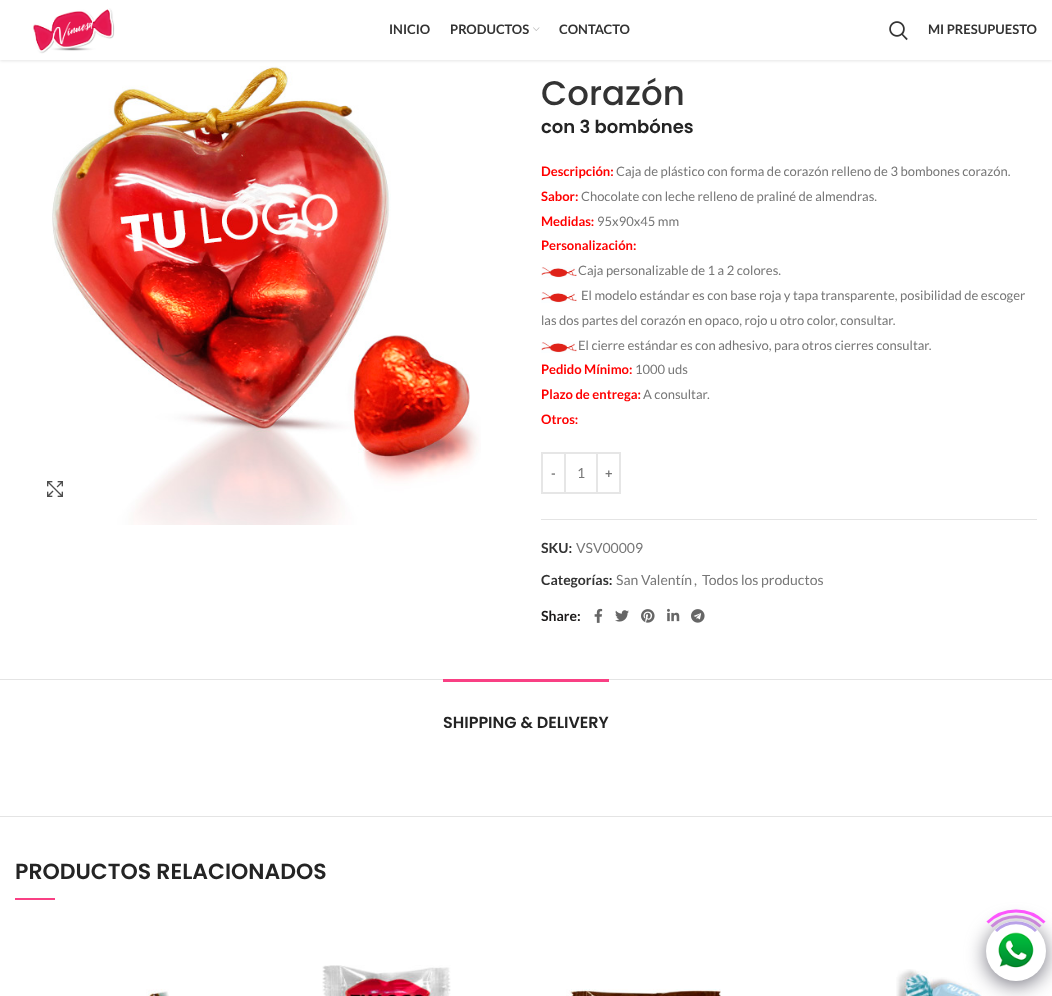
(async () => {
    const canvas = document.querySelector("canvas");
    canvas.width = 1052;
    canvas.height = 996;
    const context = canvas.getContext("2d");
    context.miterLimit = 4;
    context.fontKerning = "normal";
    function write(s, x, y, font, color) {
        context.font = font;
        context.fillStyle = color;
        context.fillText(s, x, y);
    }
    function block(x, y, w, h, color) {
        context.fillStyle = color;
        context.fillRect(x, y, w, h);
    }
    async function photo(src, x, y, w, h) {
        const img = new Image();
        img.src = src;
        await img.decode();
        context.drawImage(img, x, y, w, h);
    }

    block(0, 0, 1052, 996, "rgb(255, 255, 255)");
    await photo("media/4.png", 52, 66, 429, 459);
    context.fillStyle = "rgba(0, 0, 0, 0.1)";
    context.filter = "blur(1.5px)";
    context.beginPath();
    context.rect(0, 1, 1052, 60);
    context.fill();
    context.filter = "none";
    block(0, 0, 1052, 60, "rgb(255, 255, 255)");
    await photo("media/1.png", 33, 8, 82, 46);
    write("INICIO", 389, 34, "bold 13px Lato", "rgb(51, 51, 51)");
    write("PRODUCTOS", 450, 34, "bold 13px Lato", "rgb(51, 51, 51)");
    await photo("media/2.png", 533, 27, 7, 4);
    write("CONTACTO", 559, 34, "bold 13px Lato", "rgb(51, 51, 51)");
    await photo("media/3.png", 889, 21, 19, 20);
    write("MI PRESUPUESTO", 928, 34, "bold 13px Lato", "rgb(51, 51, 51)");
    await photo("media/5.png", 47, 481, 16, 16);
    write("Corazón", 541, 105, "500 34px Poppins", "rgb(51, 51, 51)");
    write("con 3 bombónes", 541, 133, "600 18px Poppins", "rgb(36, 36, 36)");
    write("Descripción:", 541, 176, "bold 13px Lato", "rgb(255, 0, 0)");
    write("Caja de plástico con forma de corazón relleno de 3 bombones corazón.", 616, 176, "13px Lato", "rgb(119, 119, 119)");
    write("Sabor:", 541, 201, "bold 13px Lato", "rgb(255, 0, 0)");
    write("Chocolate con leche relleno de praliné de almendras.", 581, 201, "13px Lato", "rgb(119, 119, 119)");
    write("Medidas:", 541, 226, "bold 13px Lato", "rgb(255, 0, 0)");
    write("95x90x45 mm", 597, 226, "13px Lato", "rgb(119, 119, 119)");
    write("Personalización:", 541, 250, "bold 13px Lato", "rgb(255, 0, 0)");
    await photo("media/6.png", 541, 267, 36, 11);
    write("Caja personalizable de 1 a 2 colores.", 578, 275, "13px Lato", "rgb(119, 119, 119)");
    await photo("media/6.png", 541, 292, 36, 11);
    write("El modelo estándar es con base roja y tapa transparente, posibilidad de escoger", 581, 300, "13px Lato", "rgb(119, 119, 119)");
    write("las dos partes del corazón en opaco, rojo u otro color, consultar.", 541, 325, "13px Lato", "rgb(119, 119, 119)");
    await photo("media/7.png", 541, 342, 36, 11);
    write("El cierre estándar es con adhesivo, para otros cierres consultar.", 578, 350, "13px Lato", "rgb(119, 119, 119)");
    write("Pedido Mínimo:", 541, 374, "bold 13px Lato", "rgb(255, 0, 0)");
    write("1000 uds", 635, 374, "13px Lato", "rgb(119, 119, 119)");
    write("Plazo de entrega:", 541, 399, "bold 13px Lato", "rgb(255, 0, 0)");
    write("A consultar.", 643, 399, "13px Lato", "rgb(119, 119, 119)");
    write("Otros:", 541, 424, "bold 13px Lato", "rgb(255, 0, 0)");
    context.strokeStyle = "rgb(230, 230, 230)";
    context.lineWidth = 2;
    context.strokeRect(542, 453, 23, 40);
    write("-", 551, 478, "bold 13px Lato", "rgb(119, 119, 119)");
    block(566, 452, 30, 2, "rgb(230, 230, 230)");
    block(566, 492, 30, 2, "rgb(230, 230, 230)");
    write("1", 577, 478, "14px Lato", "rgb(119, 119, 119)");
    context.strokeRect(597, 453, 23, 40);
    write("+", 605, 478, "bold 13px Lato", "rgb(119, 119, 119)");
    block(541, 519, 496, 1, "rgb(228, 228, 228)");
    write("SKU:", 541, 553, "bold 14px Lato", "rgb(51, 51, 51)");
    write("VSV00009", 576, 553, "14px Lato", "rgb(119, 119, 119)");
    write("Categorías:", 541, 585, "bold 14px Lato", "rgb(51, 51, 51)");
    write("San Valentín", 616, 585, "14px Lato", "rgb(119, 119, 119)");
    write(",", 694, 585, "14px Lato", "rgb(119, 119, 119)");
    write("Todos los productos", 702, 585, "14px Lato", "rgb(119, 119, 119)");
    write("Share:", 541, 621, "bold 14px Lato", "rgb(27, 25, 25)");
    await photo("media/8.png", 594, 608, 9, 15);
    await photo("media/9.png", 615, 610, 14, 12);
    await photo("media/10.png", 641, 609, 14, 14);
    await photo("media/11.png", 667, 608, 13, 14);
    await photo("media/12.png", 691, 609, 14, 14);
    block(0, 679, 1052, 1, "rgb(228, 228, 228)");
    block(0, 816, 1052, 1, "rgb(228, 228, 228)");
    block(443, 679, 166, 3, "rgb(249, 64, 132)");
    write("SHIPPING & DELIVERY", 443, 728, "600 16px Poppins", "rgb(36, 36, 36)");
    write("PRODUCTOS RELACIONADOS", 15, 879, "600 22px Poppins", "rgb(36, 36, 36)");
    block(15, 898, 40, 2, "rgb(249, 64, 132)");
    await photo("media/13.png", 146, 989, 23, 7);
    await photo("media/14.png", 322, 965, 129, 31);
    await photo("media/15.png", 566, 989, 155, 7);
    await photo("media/16.png", 896, 969, 86, 27);
    context.fillStyle = "rgb(118, 117, 128)";
    context.filter = "blur(10px)";
    context.beginPath();
    context.roundRect(986, 925, 60, 60, 30);
    context.fill();
    context.filter = "none";
    context.fillStyle = "rgb(255, 255, 255)";
    context.beginPath();
    context.arc(1016, 951, 30, 0, Math.PI * 2);
    context.fill();
    await photo("media/17.png", 998, 932, 36, 36);
    context.beginPath();
    context.moveTo(996, 931);
    context.bezierCurveTo(1007, 920, 1025, 920, 1036, 931);
    context.strokeStyle = "rgb(185, 162, 232)";
    context.lineWidth = 3;
    context.stroke();
    context.beginPath();
    context.moveTo(991.5, 926.5);
    context.bezierCurveTo(1005, 913.5, 1027, 913.5, 1040.5, 926.5);
    context.strokeStyle = "rgba(186, 85, 211, 0.65)";
    context.stroke();
    context.beginPath();
    context.moveTo(987.5, 922.5);
    context.bezierCurveTo(1003, 907, 1029, 907, 1044.5, 922.5);
    context.strokeStyle = "rgba(255, 0, 255, 0.65)";
    context.stroke();
})();
